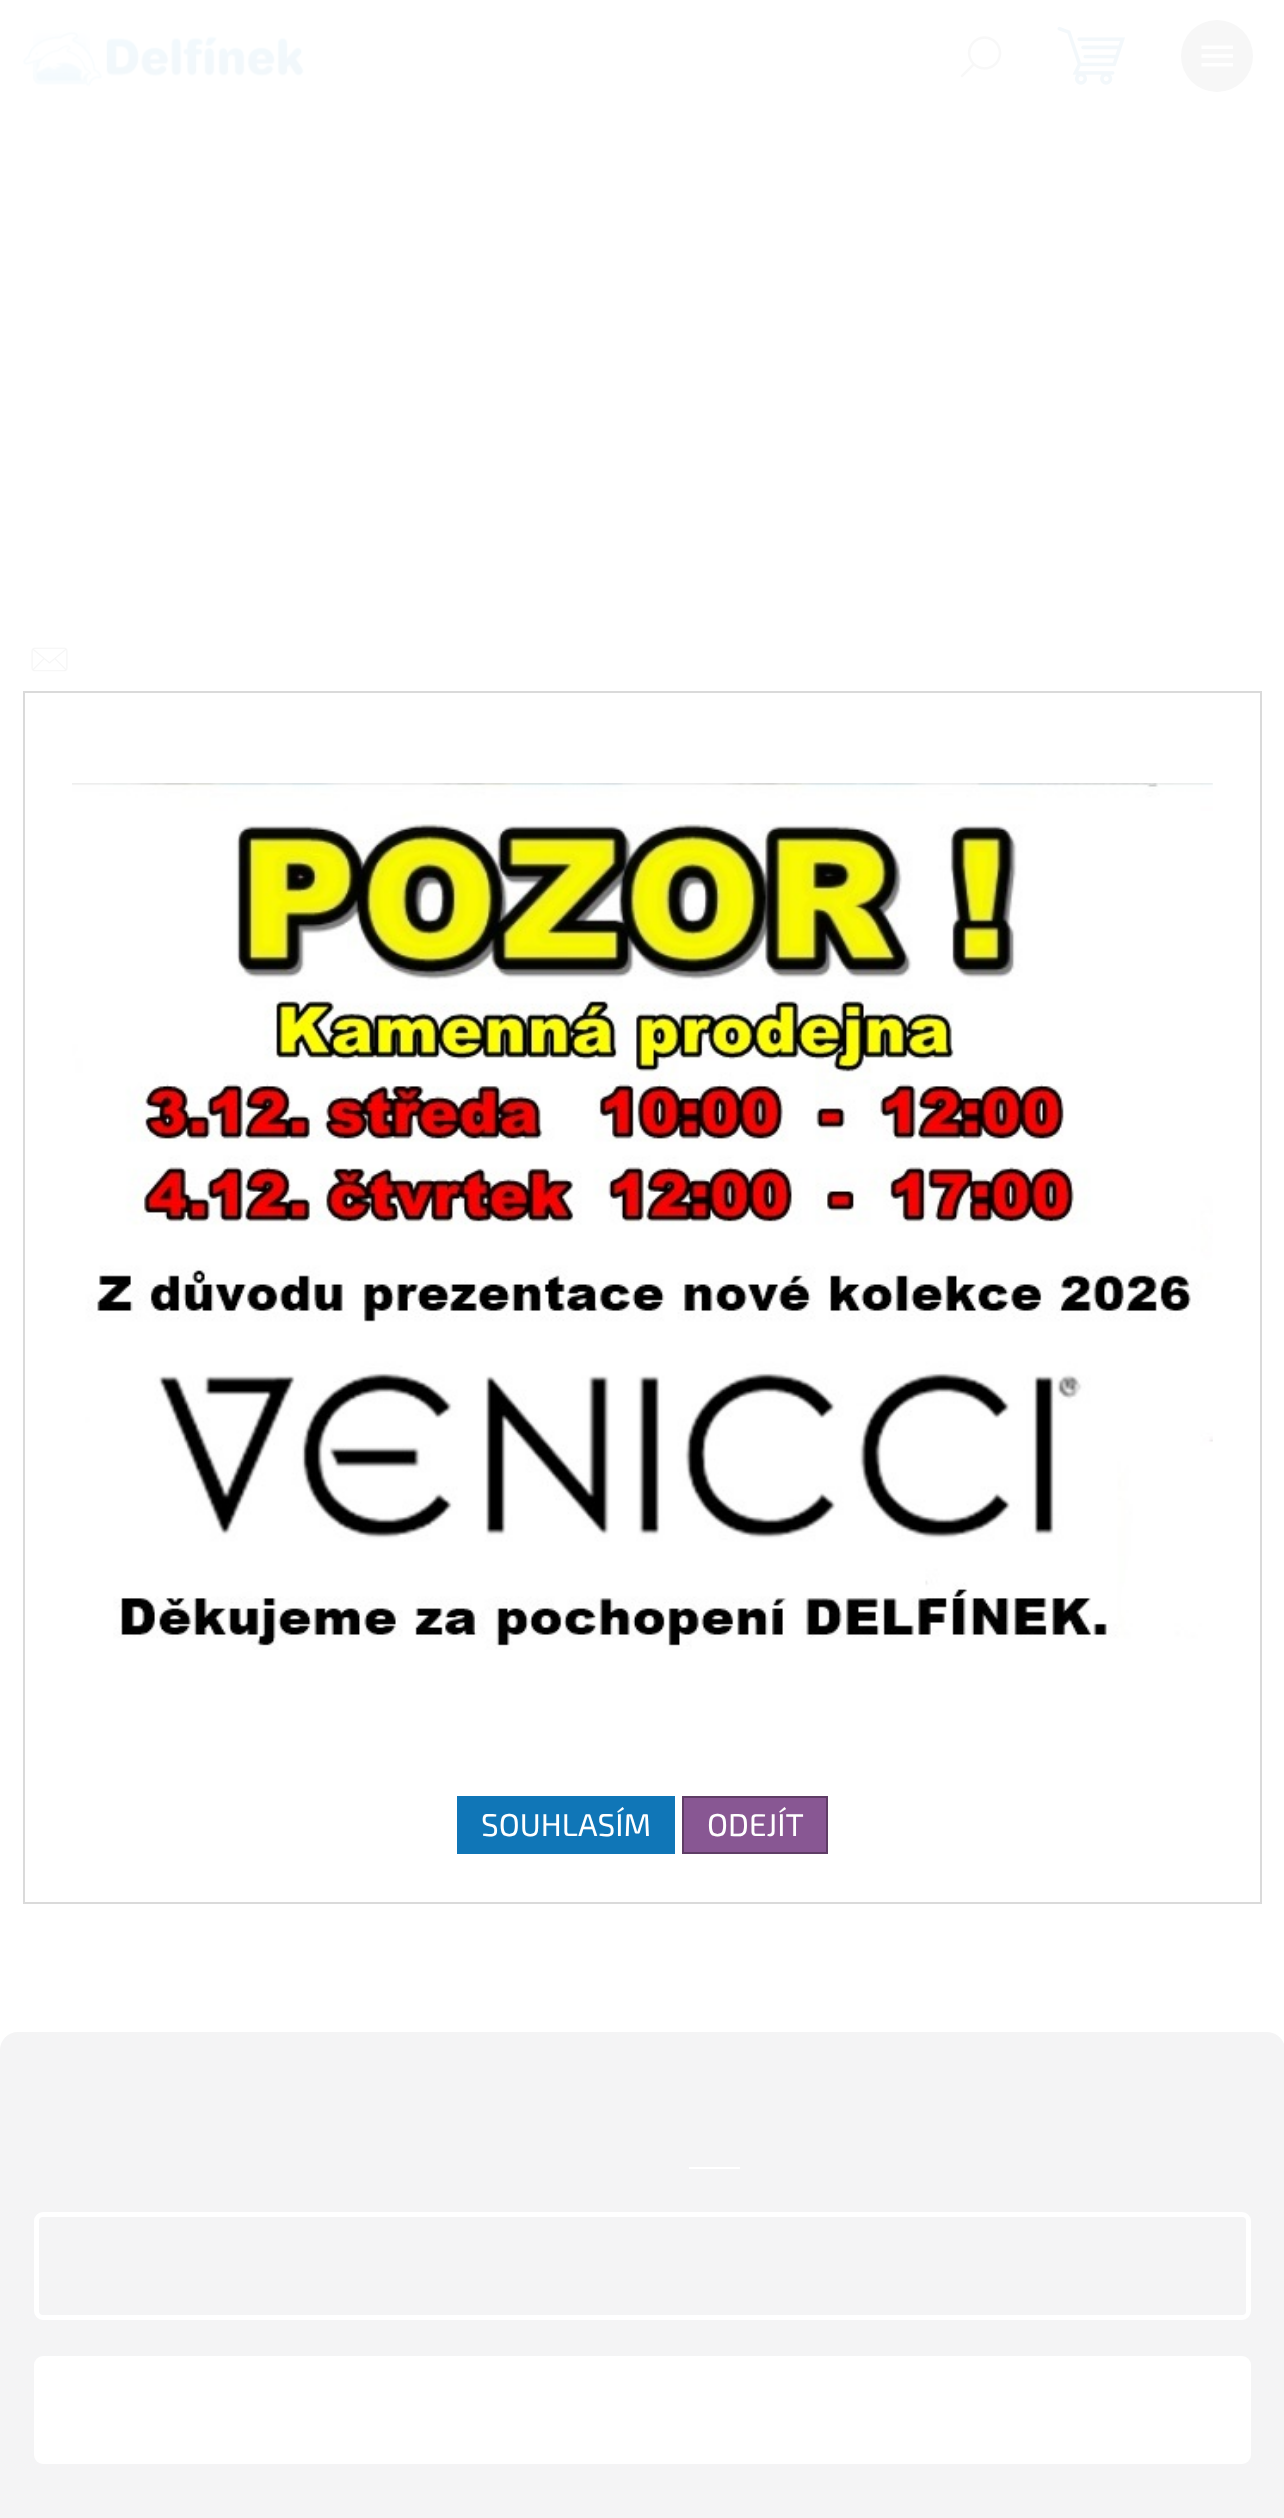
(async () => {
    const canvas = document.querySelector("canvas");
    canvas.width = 1284;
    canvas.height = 2518;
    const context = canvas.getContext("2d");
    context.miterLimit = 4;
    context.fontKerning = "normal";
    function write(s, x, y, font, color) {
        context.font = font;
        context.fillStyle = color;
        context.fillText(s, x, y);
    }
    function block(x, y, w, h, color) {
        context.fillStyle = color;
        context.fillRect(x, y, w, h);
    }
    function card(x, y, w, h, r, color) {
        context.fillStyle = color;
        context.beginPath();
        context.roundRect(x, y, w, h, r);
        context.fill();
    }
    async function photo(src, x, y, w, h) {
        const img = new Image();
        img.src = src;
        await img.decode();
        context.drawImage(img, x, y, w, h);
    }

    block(0, 0, 1284, 2518, "rgb(255, 255, 255)");
    await photo("media/1.png", 960, 36, 42, 42);
    context.fillStyle = "rgb(247, 247, 247)";
    context.beginPath();
    context.arc(1217, 56, 36, 0, Math.PI * 2);
    context.fill();
    await photo("media/2.png", 1201, 45, 32, 22);
    await photo("media/3.png", 23, 29, 281, 58);
    await photo("media/4.png", 1057, 26, 68, 59);
    await photo("media/5.png", 31, 647, 37, 25);
    context.strokeStyle = "rgb(218, 218, 218)";
    context.lineWidth = 2;
    context.strokeRect(24, 692, 1237, 1211);
    await photo("media/6.png", 72, 783, 1141, 867);
    block(457, 1796, 218, 58, "rgb(16, 118, 183)");
    write("SOUHLASÍM", 481, 1836, "31.5px 'Exo 2'", "rgb(255, 255, 255)");
    context.fillStyle = "rgb(136, 87, 147)";
    context.beginPath();
    context.rect(683, 1797, 144, 56);
    context.fill();
    context.strokeStyle = "rgb(95, 61, 102)";
    context.stroke();
    write("ODEJÍT", 707, 1836, "31.5px 'Exo 2'", "rgb(255, 255, 255)");
    context.fillStyle = "rgb(244, 244, 245)";
    context.beginPath();
    context.moveTo(18, 2032);
    context.lineTo(1267, 2032);
    context.bezierCurveTo(1277, 2032, 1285, 2040, 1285, 2050);
    context.lineTo(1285, 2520);
    context.lineTo(0, 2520);
    context.lineTo(0, 2050);
    context.bezierCurveTo(0, 2040, 8, 2032, 18, 2032);
    context.closePath();
    context.fill();
    block(689, 2167, 51, 2, "rgb(255, 255, 255)");
    context.beginPath();
    context.roundRect(36.5, 2214.5, 1212, 103, 6.5);
    context.strokeStyle = "rgb(255, 255, 255)";
    context.lineWidth = 5;
    context.stroke();
    card(34, 2356, 1217, 108, 9, "rgb(255, 255, 255)");
})();
